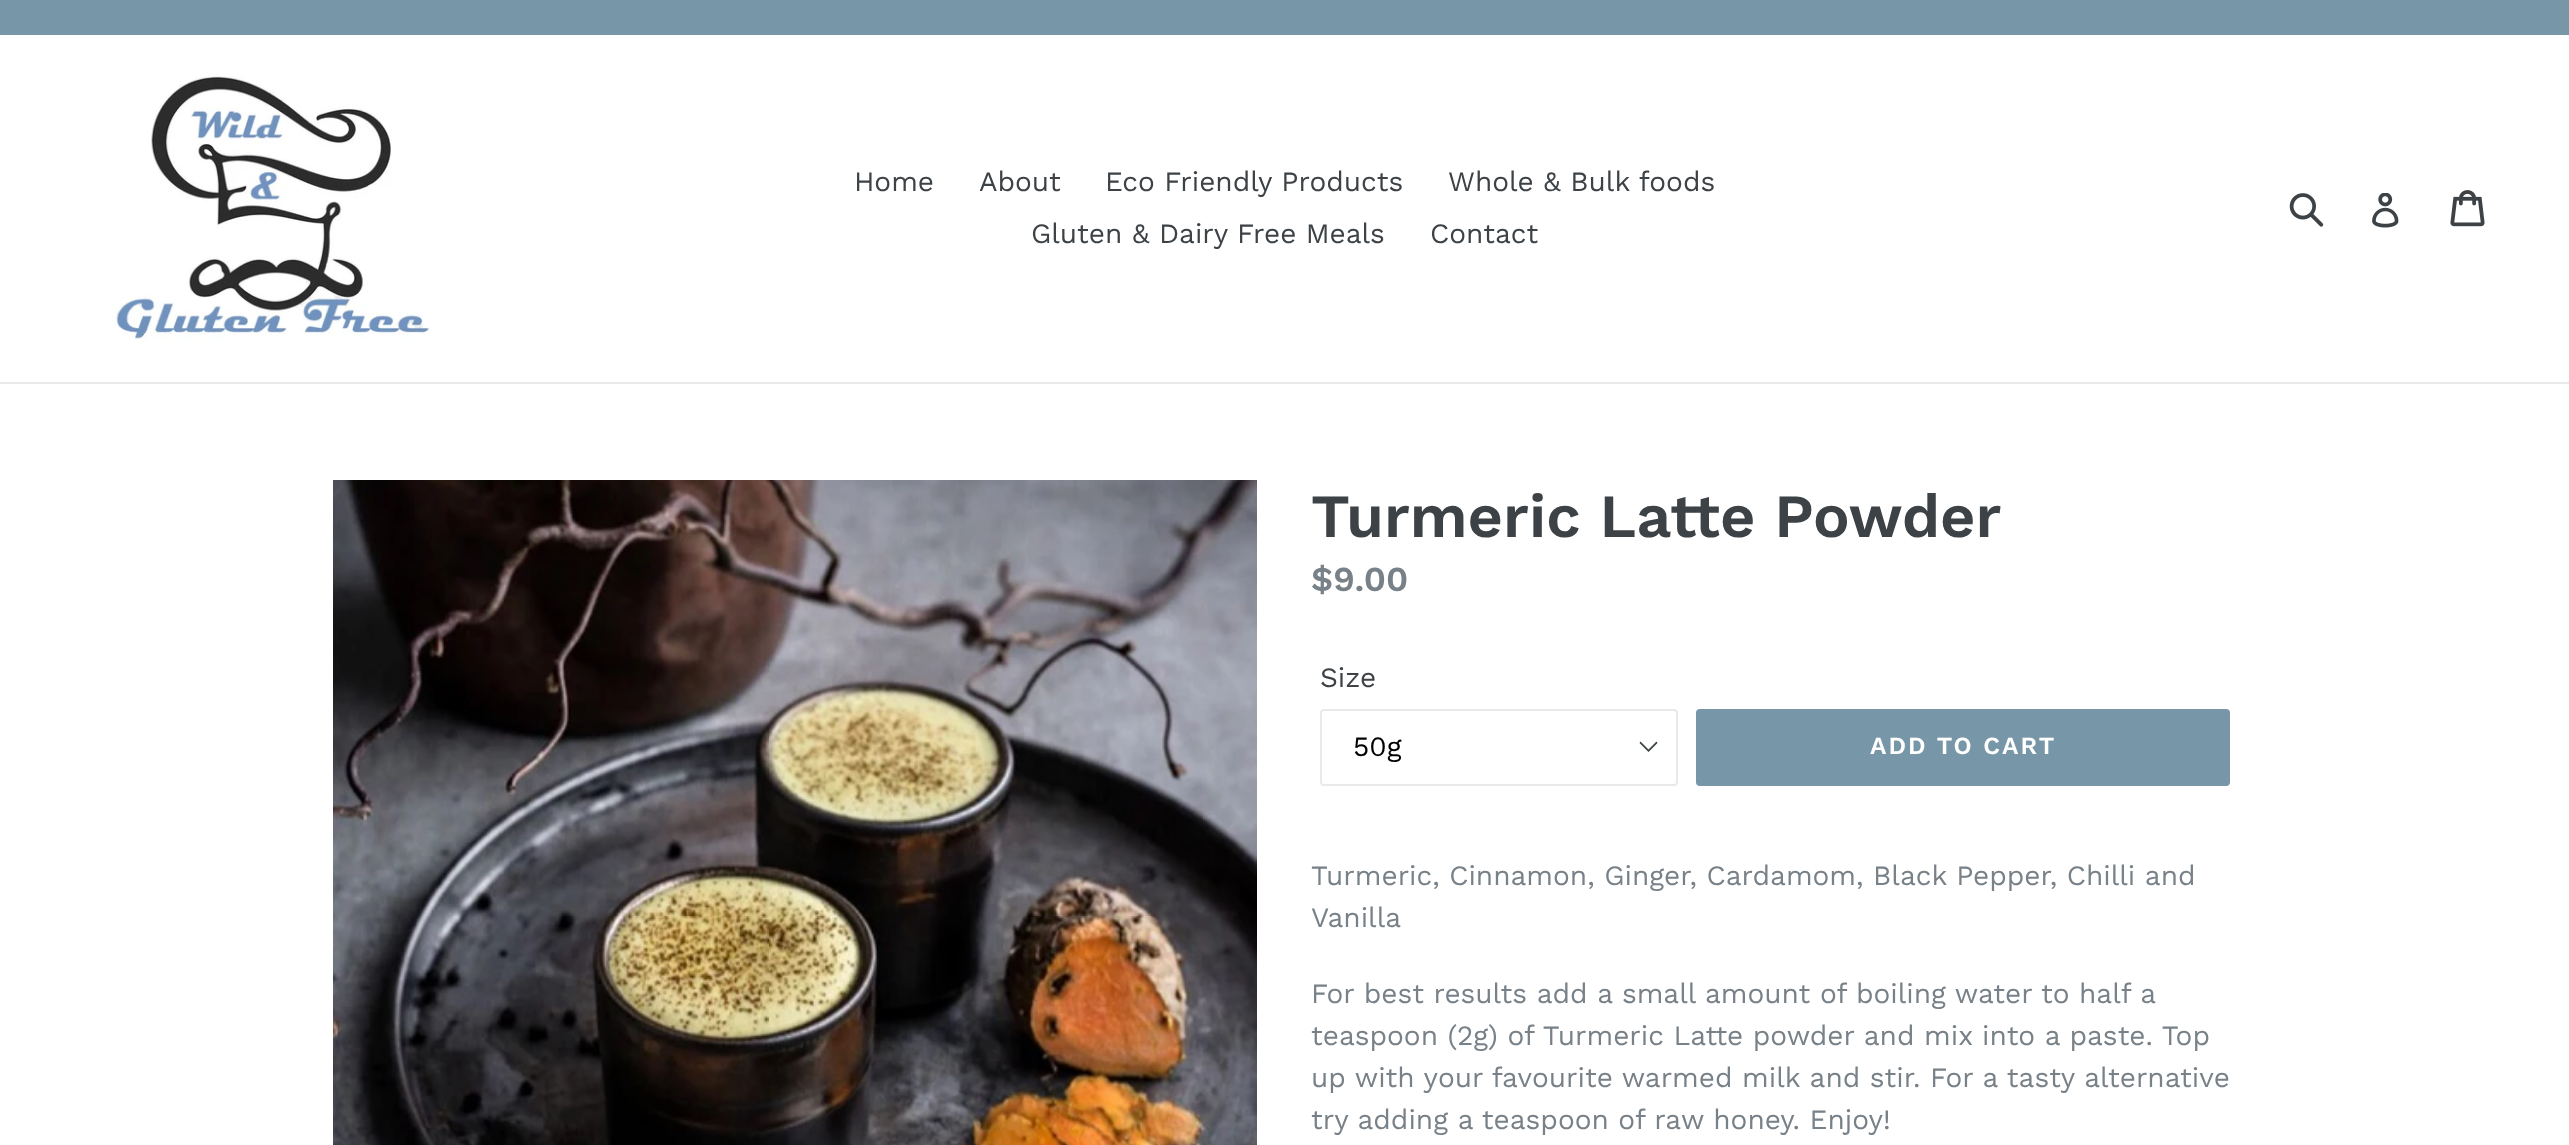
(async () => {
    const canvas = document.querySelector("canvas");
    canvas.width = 2569;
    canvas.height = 1145;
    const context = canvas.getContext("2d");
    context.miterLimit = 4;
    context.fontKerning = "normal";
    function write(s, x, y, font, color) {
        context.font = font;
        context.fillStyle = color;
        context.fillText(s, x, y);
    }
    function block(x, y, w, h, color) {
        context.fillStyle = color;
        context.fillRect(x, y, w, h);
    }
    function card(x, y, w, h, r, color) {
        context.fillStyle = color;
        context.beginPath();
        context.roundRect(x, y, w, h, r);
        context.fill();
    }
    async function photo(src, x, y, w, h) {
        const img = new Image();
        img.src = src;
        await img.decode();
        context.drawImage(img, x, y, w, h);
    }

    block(0, 0, 2569, 1145, "rgb(255, 255, 255)");
    block(0, 0, 2569, 35, "rgb(119, 150, 168)");
    block(0, 382, 2569, 2, "rgb(232, 233, 235)");
    await photo("media/1.png", 112, 76, 318, 265);
    write("Home", 854, 191, "28px Work Sans", "rgb(61, 66, 70)");
    write("About", 979, 191, "28px Work Sans", "rgb(61, 66, 70)");
    write("Eco Friendly Products", 1105, 191, "28px Work Sans", "rgb(61, 66, 70)");
    write("Whole & Bulk foods", 1448, 191, "28px Work Sans", "rgb(61, 66, 70)");
    write("Gluten & Dairy Free Meals", 1031, 243, "28px Work Sans", "rgb(61, 66, 70)");
    write("Contact", 1430, 243, "28px Work Sans", "rgb(61, 66, 70)");
    await photo("media/2.png", 2289, 193, 35, 34);
    await photo("media/3.png", 2372, 193, 27, 35);
    await photo("media/4.png", 2450, 190, 35, 37);
    await photo("media/5.png", 333, 480, 924, 665);
    write("Turmeric Latte Powder", 1311, 537, "600 61.25px Work Sans", "rgb(61, 66, 70)");
    write("$9.00", 1311, 591, "600 35px Work Sans", "rgb(120, 129, 136)");
    write("Size", 1320, 687, "28px Work Sans", "rgb(61, 66, 70)");
    context.beginPath();
    context.moveTo(1648.5, 752);
    context.lineTo(1639.5, 743);
    context.lineTo(1640.5, 741.5);
    context.lineTo(1648.5, 749.5);
    context.lineTo(1656.5, 741.5);
    context.lineTo(1657.5, 743);
    context.closePath();
    context.fill();
    context.beginPath();
    context.roundRect(1321, 710, 356, 75, 3);
    context.strokeStyle = "rgb(232, 233, 235)";
    context.lineWidth = 2;
    context.stroke();
    write("50g", 1353, 756, "28px Work Sans", "rgb(0, 0, 0)");
    card(1696, 709, 534, 77, 4, "rgb(119, 150, 168)");
    context.letterSpacing = "2px";
    write("ADD TO CART", 1870, 754, "600 24.5px Work Sans", "rgb(255, 255, 255)");
    context.letterSpacing = "0px";
    write("Turmeric, Cinnamon, Ginger, Cardamom, Black Pepper, Chilli and", 1311, 885, "28px Work Sans", "rgb(120, 129, 136)");
    write("Vanilla", 1311, 927, "28px Work Sans", "rgb(120, 129, 136)");
    write("For best results add a small amount of boiling water to half a", 1311, 1003, "28px Work Sans", "rgb(120, 129, 136)");
    write("teaspoon (2g) of Turmeric Latte powder and mix into a paste. Top", 1311, 1045, "28px Work Sans", "rgb(120, 129, 136)");
    write("up with your favourite warmed milk and stir. For a tasty alternative", 1311, 1087, "28px Work Sans", "rgb(120, 129, 136)");
    write("try adding a teaspoon of raw honey. Enjoy!", 1311, 1129, "28px Work Sans", "rgb(120, 129, 136)");
})();
